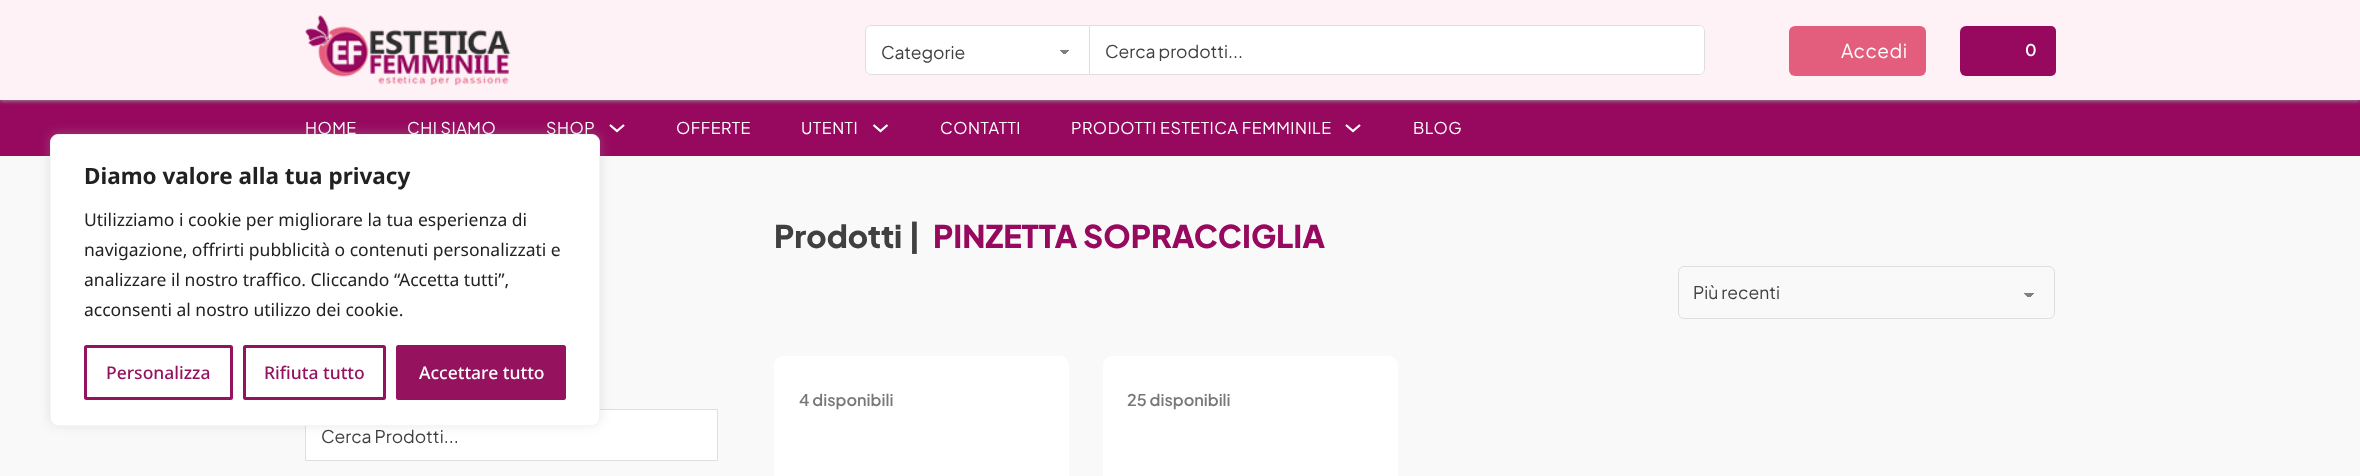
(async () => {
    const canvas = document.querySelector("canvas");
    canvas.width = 2360;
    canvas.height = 476;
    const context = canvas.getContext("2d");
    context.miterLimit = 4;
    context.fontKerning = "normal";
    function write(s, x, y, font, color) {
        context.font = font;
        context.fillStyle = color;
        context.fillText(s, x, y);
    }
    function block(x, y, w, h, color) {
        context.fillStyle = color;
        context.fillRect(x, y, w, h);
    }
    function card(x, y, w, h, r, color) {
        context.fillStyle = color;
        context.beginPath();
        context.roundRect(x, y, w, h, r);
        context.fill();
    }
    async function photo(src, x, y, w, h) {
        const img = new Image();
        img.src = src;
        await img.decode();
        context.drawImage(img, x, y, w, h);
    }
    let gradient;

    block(0, 0, 2360, 476, "rgb(249, 249, 249)");
    block(0, 100, 2360, 56, "rgb(151, 9, 95)");
    context.fillStyle = "rgb(145, 145, 145)";
    context.filter = "blur(2px)";
    context.beginPath();
    context.rect(0, 1, 2360, 100);
    context.fill();
    context.filter = "none";
    block(0, 0, 2360, 100, "rgb(255, 242, 247)");
    await photo("media/1.png", 305, 15, 206, 70);
    context.fillStyle = "rgb(255, 255, 255)";
    context.beginPath();
    context.roundRect(865, 25, 225, 50, [6, 0, 0, 6]);
    context.fill();
    gradient = context.createLinearGradient(1064, 50, 1069, 55);
    gradient.addColorStop(0.5, "rgb(128, 128, 128)");
    gradient.addColorStop(0.5, "rgb(255, 255, 255)");
    context.fillStyle = gradient;
    context.fillRect(1064, 50, 5, 4);
    gradient = context.createLinearGradient(1059, 55, 1064, 50);
    gradient.addColorStop(0.5, "rgb(255, 255, 255)");
    gradient.addColorStop(0.5, "rgb(128, 128, 128)");
    context.fillStyle = gradient;
    context.fillRect(1059, 50, 5, 4);
    context.beginPath();
    context.roundRect(865.5, 25.5, 224, 49, [5.5, 0, 0, 5.5]);
    context.strokeStyle = "rgb(221, 222, 223)";
    context.stroke();
    write("Categorie", 881, 59, "17.5px Plus Jakarta Sans", "rgb(64, 64, 64)");
    block(1090, 26, 560, 48, "rgb(255, 255, 255)");
    block(1090, 25, 560, 1, "rgb(221, 222, 223)");
    block(1090, 74, 560, 1, "rgb(221, 222, 223)");
    context.save();
    context.beginPath();
    context.rect(1105, 39, 525, 22);
    context.clip();
    write("Cerca prodotti...", 1105, 58, "17.5px Plus Jakarta Sans", "rgb(64, 64, 64)");
    context.restore();
    context.fillStyle = "rgb(255, 255, 255)";
    context.beginPath();
    context.roundRect(1650, 25, 55, 50, [0, 6, 6, 0]);
    context.fill();
    context.fillStyle = "rgb(221, 222, 223)";
    context.beginPath();
    context.moveTo(1650, 25);
    context.lineTo(1699, 25);
    context.bezierCurveTo(1702, 25, 1705, 28, 1705, 31);
    context.lineTo(1705, 69);
    context.bezierCurveTo(1705, 72, 1702, 75, 1699, 75);
    context.lineTo(1650, 75);
    context.closePath();
    context.moveTo(1650, 26);
    context.lineTo(1699, 26);
    context.bezierCurveTo(1702, 26, 1704, 28, 1704, 31);
    context.lineTo(1704, 69);
    context.bezierCurveTo(1704, 72, 1702, 74, 1699, 74);
    context.lineTo(1650, 74);
    context.closePath();
    context.fill("evenodd");
    card(1789, 26, 137, 50, 6, "rgb(227, 94, 125)");
    context.letterSpacing = "0.5px";
    write("Accedi", 1841, 58, "19px Plus Jakarta Sans", "rgb(255, 255, 255)");
    card(1960, 26, 81, 50, 6, "rgb(151, 9, 95)");
    card(2021, 26, 35, 50, 5, "rgb(151, 9, 95)");
    context.letterSpacing = "0px";
    write("0", 2025, 56, "600 16.25px Plus Jakarta Sans", "rgb(255, 255, 255)");
    context.letterSpacing = "0.5px";
    write("HOME", 305, 134, "16.25px Plus Jakarta Sans", "rgb(255, 255, 255)");
    write("CHI SIAMO", 407, 134, "16.25px Plus Jakarta Sans", "rgb(255, 255, 255)");
    write("SHOP", 546, 134, "16.25px Plus Jakarta Sans", "rgb(255, 255, 255)");
    context.beginPath();
    context.moveTo(610, 125);
    context.lineTo(617, 131);
    context.lineTo(624, 125);
    context.strokeStyle = "rgb(255, 255, 255)";
    context.lineWidth = 2.3;
    context.stroke();
    write("OFFERTE", 676, 134, "16.25px Plus Jakarta Sans", "rgb(255, 255, 255)");
    write("UTENTI", 801, 134, "16.25px Plus Jakarta Sans", "rgb(255, 255, 255)");
    context.beginPath();
    context.moveTo(873.5, 125);
    context.lineTo(880.5, 131);
    context.lineTo(887.5, 125);
    context.stroke();
    write("CONTATTI", 940, 134, "16.25px Plus Jakarta Sans", "rgb(255, 255, 255)");
    write("PRODOTTI ESTETICA FEMMINILE", 1071, 134, "16.25px Plus Jakarta Sans", "rgb(255, 255, 255)");
    context.beginPath();
    context.moveTo(1346, 125);
    context.lineTo(1353, 131);
    context.lineTo(1360, 125);
    context.stroke();
    write("BLOG", 1413, 134, "16.25px Plus Jakarta Sans", "rgb(255, 255, 255)");
    context.beginPath();
    context.rect(305.5, 409.5, 412, 51);
    context.fill();
    context.strokeStyle = "rgb(221, 222, 223)";
    context.lineWidth = 1;
    context.stroke();
    context.fillStyle = "rgba(172, 171, 171, 0.3)";
    context.filter = "blur(6px)";
    context.beginPath();
    context.roundRect(50, 133, 550, 292, 8);
    context.fill();
    context.filter = "none";
    context.fillStyle = "rgb(255, 255, 255)";
    context.beginPath();
    context.roundRect(50.5, 134.5, 549, 291, 7.5);
    context.fill();
    context.strokeStyle = "rgb(244, 244, 244)";
    context.stroke();
    context.letterSpacing = "0px";
    write("Diamo valore alla tua privacy", 84, 184, "bold 22.5px Noto Sans", "rgb(33, 33, 33)");
    write("Utilizziamo i cookie per migliorare la tua esperienza di", 84, 226, "17.5px Noto Sans", "rgb(33, 33, 33)");
    write("navigazione, offrirti pubblicità o contenuti personalizzati e", 84, 256, "17.5px Noto Sans", "rgb(33, 33, 33)");
    write("analizzare il nostro traffico. Cliccando “Accetta tutti”,", 84, 286, "17.5px Noto Sans", "rgb(33, 33, 33)");
    write("acconsenti al nostro utilizzo dei cookie.", 84, 316, "17.5px Noto Sans", "rgb(33, 33, 33)");
    context.beginPath();
    context.roundRect(85.5, 346.5, 146, 52, 1);
    context.strokeStyle = "rgb(149, 18, 95)";
    context.lineWidth = 3;
    context.stroke();
    write("Personalizza", 106, 379, "500 17.5px Noto Sans", "rgb(149, 18, 95)");
    context.beginPath();
    context.roundRect(244.5, 346.5, 140, 52, 1);
    context.stroke();
    write("Rifiuta tutto", 264, 379, "500 17.5px Noto Sans", "rgb(149, 18, 95)");
    context.beginPath();
    context.roundRect(397.5, 346.5, 167, 52, 1);
    context.fill();
    context.stroke();
    write("Accettare tutto", 419, 379, "500 17.5px Noto Sans", "rgb(255, 255, 255)");
    write("Prodotti |", 774, 248, "800 31.25px Plus Jakarta Sans", "rgb(64, 64, 64)");
    write("PINZETTA SOPRACCIGLIA", 933, 248, "800 31.25px Plus Jakarta Sans", "rgb(151, 9, 95)");
    gradient = context.createLinearGradient(2029, 293, 2034, 298);
    gradient.addColorStop(0.5, "rgb(128, 128, 128)");
    gradient.addColorStop(0.5, "rgb(249, 249, 249)");
    context.fillStyle = gradient;
    context.fillRect(2029, 293, 5, 4);
    gradient = context.createLinearGradient(2024, 298, 2029, 293);
    gradient.addColorStop(0.5, "rgb(249, 249, 249)");
    gradient.addColorStop(0.5, "rgb(128, 128, 128)");
    context.fillStyle = gradient;
    context.fillRect(2024, 293, 5, 4);
    context.beginPath();
    context.roundRect(1678.5, 266.5, 376, 52, 5.5);
    context.strokeStyle = "rgb(221, 222, 223)";
    context.lineWidth = 1;
    context.stroke();
    write("Più recenti", 1693, 299, "17.5px Plus Jakarta Sans", "rgb(64, 64, 64)");
    card(774, 356, 295, 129, 9, "rgb(255, 255, 255)");
    write("4 disponibili", 799, 406, "600 16.25px Plus Jakarta Sans", "rgb(120, 120, 120)");
    card(1103, 356, 295, 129, 9, "rgb(255, 255, 255)");
    write("25 disponibili", 1127, 406, "600 16.25px Plus Jakarta Sans", "rgb(120, 120, 120)");
    write("Cerca Prodotti...", 321, 443, "17.5px Plus Jakarta Sans", "rgb(64, 64, 64)");
})();
